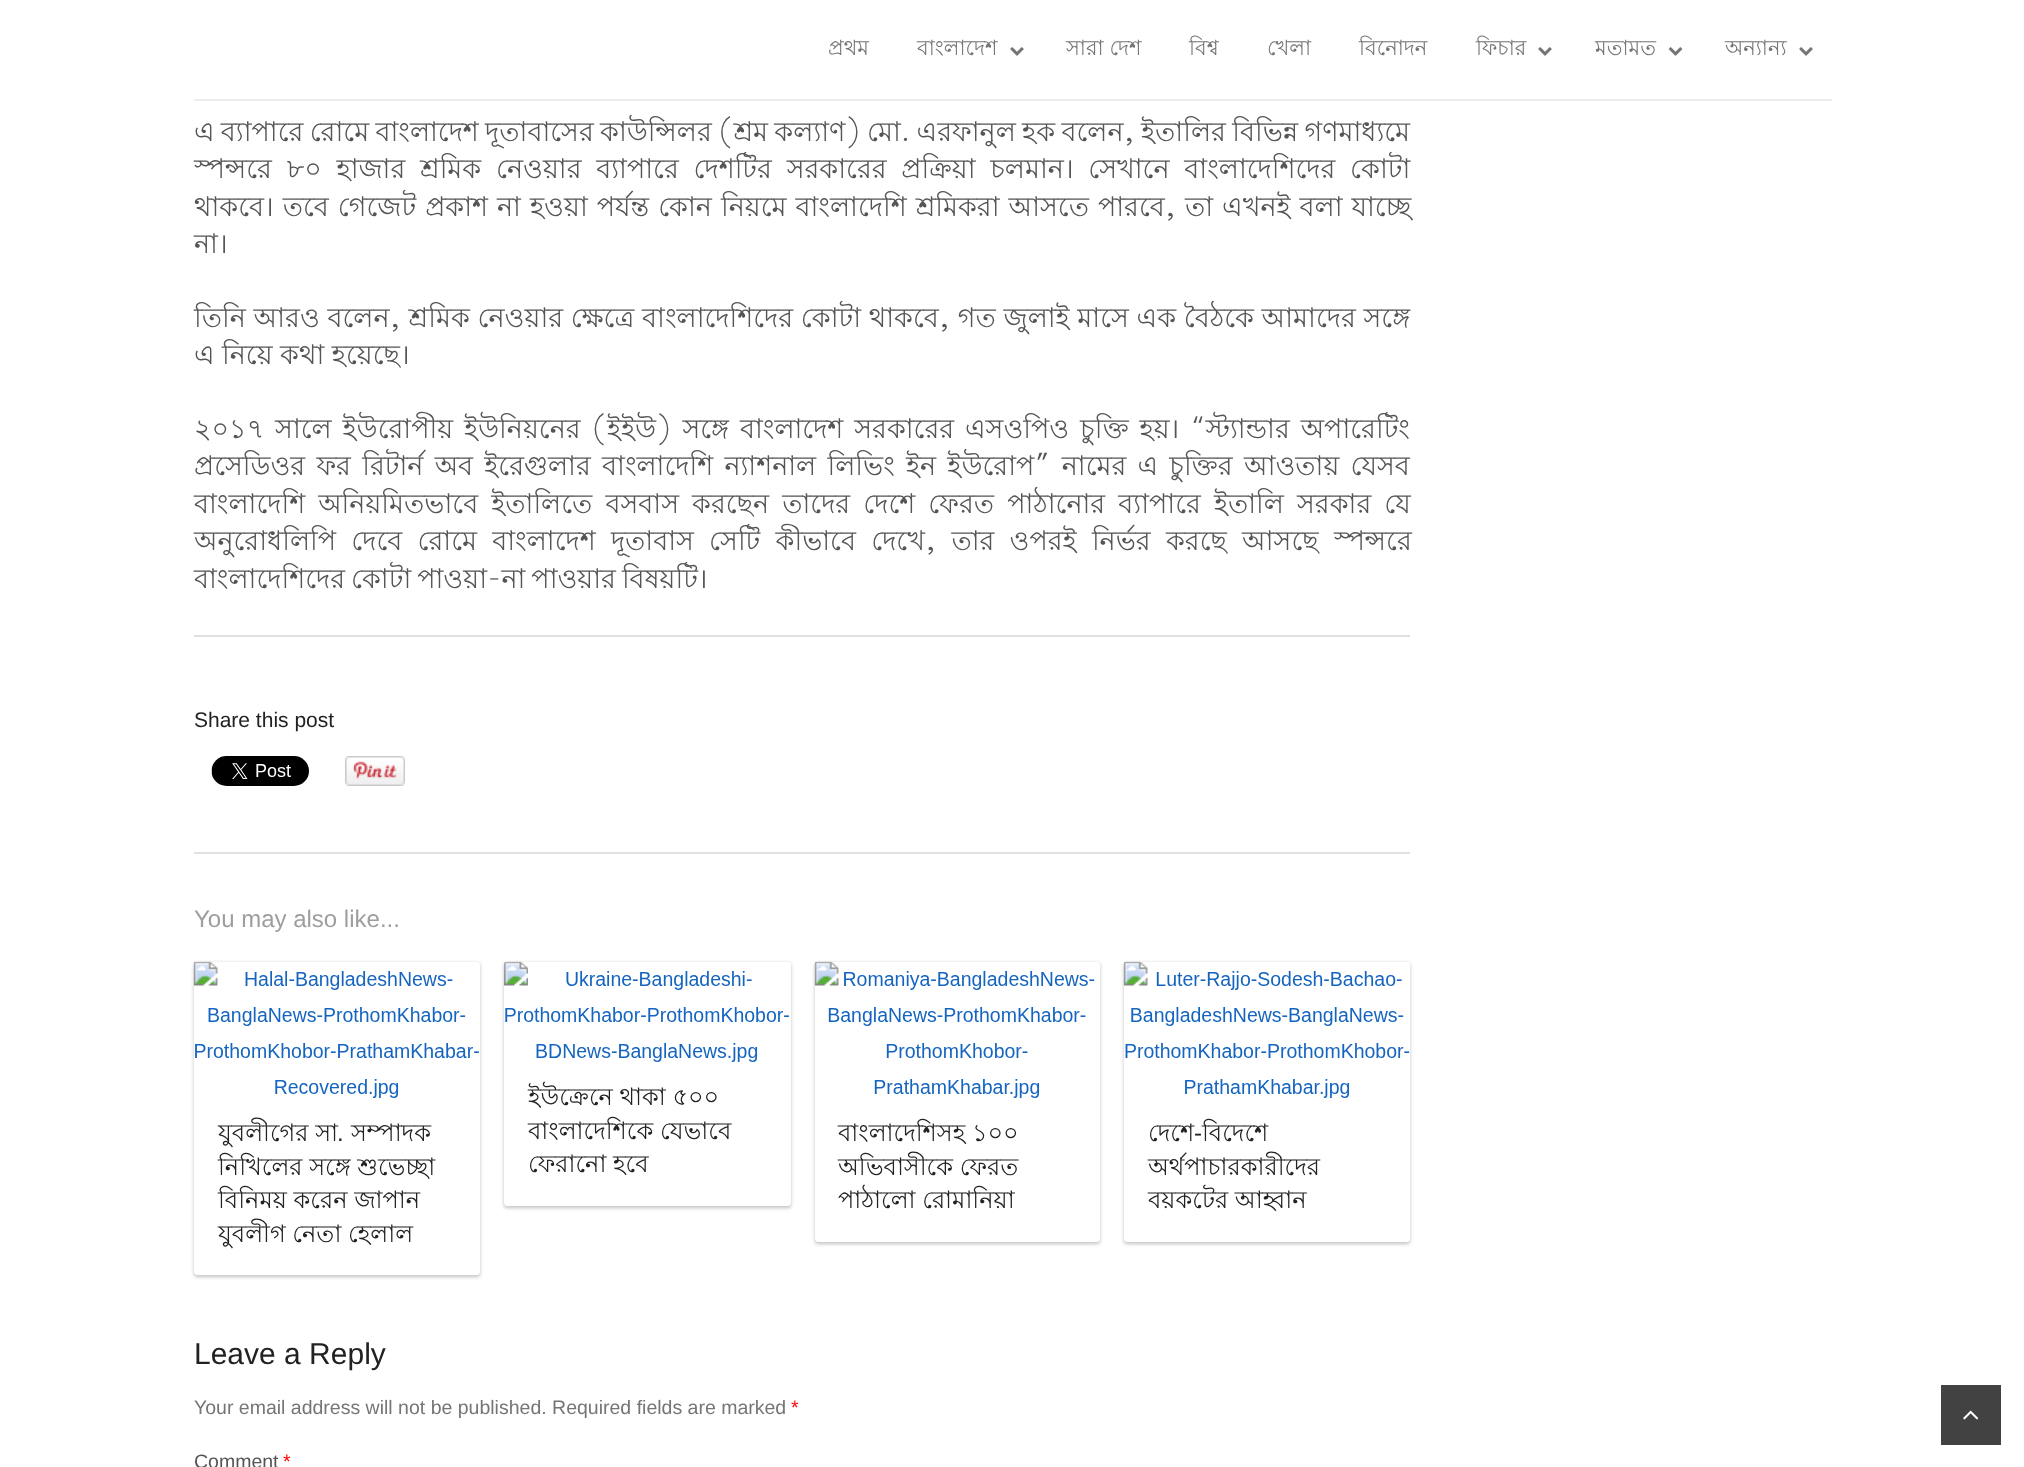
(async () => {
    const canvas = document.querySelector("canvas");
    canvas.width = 2024;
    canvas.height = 1467;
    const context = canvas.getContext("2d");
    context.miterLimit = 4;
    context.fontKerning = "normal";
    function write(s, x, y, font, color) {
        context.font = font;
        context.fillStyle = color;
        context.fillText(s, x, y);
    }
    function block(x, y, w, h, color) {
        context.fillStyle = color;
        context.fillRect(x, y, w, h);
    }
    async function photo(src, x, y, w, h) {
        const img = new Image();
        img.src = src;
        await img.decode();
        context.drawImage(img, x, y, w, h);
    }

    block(0, 0, 2024, 1467, "rgb(255, 255, 255)");
    context.fillStyle = "rgb(237, 237, 237)";
    context.beginPath();
    context.moveTo(194, 99);
    context.lineTo(194, 101);
    context.lineTo(1832, 101);
    context.lineTo(1832, 2);
    context.lineTo(1832, 99);
    context.closePath();
    context.fill();
    write("প্রথম", 828, 55, "21px Lohit Bengali", "rgb(117, 117, 117)");
    write("বাংলাদেশ", 917, 55, "21px Lohit Bengali", "rgb(117, 117, 117)");
    await photo("media/1.png", 1010, 47, 14, 9);
    write("সারা দেশ", 1066, 55, "21px Lohit Bengali", "rgb(117, 117, 117)");
    write("বিশ্ব", 1189, 55, "21px Lohit Bengali", "rgb(117, 117, 117)");
    write("খেলা", 1267, 55, "21px Lohit Bengali", "rgb(117, 117, 117)");
    write("বিনোদন", 1359, 55, "21px Lohit Bengali", "rgb(117, 117, 117)");
    write("ফিচার", 1476, 55, "21px Lohit Bengali", "rgb(117, 117, 117)");
    await photo("media/1.png", 1538, 47, 14, 9);
    write("মতামত", 1595, 55, "21px Lohit Bengali", "rgb(117, 117, 117)");
    await photo("media/2.png", 1668, 47, 15, 9);
    write("অন্যান্য", 1725, 55, "21px Lohit Bengali", "rgb(117, 117, 117)");
    await photo("media/1.png", 1799, 47, 14, 9);
    block(194, 635, 1216, 2, "rgb(224, 224, 224)");
    context.wordSpacing = "-1.2px";
    write("এ ব্যাপারে রোমে বাংলাদেশ দূতাবাসের কাউন্সিলর (শ্রম কল্যাণ) মো. এরফানুল হক বলেন, ইতালির বিভিন্ন গণমাধ্যমে", 194, 141, "27px Lohit Bengali", "rgb(85, 85, 85)");
    context.wordSpacing = "7.25px";
    write("স্পন্সরে ৮০ হাজার শ্রমিক নেওয়ার ব্যাপারে দেশটির সরকারের প্রক্রিয়া চলমান। সেখানে বাংলাদেশিদের কোটা", 194, 178, "27px Lohit Bengali", "rgb(85, 85, 85)");
    context.wordSpacing = "1.5px";
    write("থাকবে। তবে গেজেট প্রকাশ না হওয়া পর্যন্ত কোন নিয়মে বাংলাদেশি শ্রমিকরা আসতে পারবে, তা এখনই বলা যাচ্ছে", 194, 216, "27px Lohit Bengali", "rgb(85, 85, 85)");
    context.wordSpacing = "0px";
    write("না।", 194, 253, "27px Lohit Bengali", "rgb(85, 85, 85)");
    context.wordSpacing = "0.25px";
    write("তিনি আরও বলেন, শ্রমিক নেওয়ার ক্ষেত্রে বাংলাদেশিদের কোটা থাকবে, গত জুলাই মাসে এক বৈঠকে আমাদের সঙ্গে", 194, 327, "27px Lohit Bengali", "rgb(85, 85, 85)");
    context.wordSpacing = "0px";
    write("এ নিয়ে কথা হয়েছে।", 194, 364, "27px Lohit Bengali", "rgb(85, 85, 85)");
    context.wordSpacing = "3.4px";
    write("২০১৭ সালে ইউরোপীয় ইউনিয়নের (ইইউ) সঙ্গে বাংলাদেশ সরকারের এসওপিও চুক্তি হয়। “স্ট্যান্ডার অপারেটিং", 194, 438, "27px Lohit Bengali", "rgb(85, 85, 85)");
    context.wordSpacing = "3.75px";
    write("প্রসেডিওর ফর রিটার্ন অব ইরেগুলার বাংলাদেশি ন্যাশনাল লিভিং ইন ইউরোপ” নামের এ চুক্তির আওতায় যেসব", 194, 475, "27px Lohit Bengali", "rgb(85, 85, 85)");
    context.wordSpacing = "5.6px";
    write("বাংলাদেশি অনিয়মিতভাবে ইতালিতে বসবাস করছেন তাদের দেশে ফেরত পাঠানোর ব্যাপারে ইতালি সরকার যে", 194, 513, "27px Lohit Bengali", "rgb(85, 85, 85)");
    context.wordSpacing = "7.75px";
    write("অনুরোধলিপি দেবে রোমে বাংলাদেশ দূতাবাস সেটি কীভাবে দেখে, তার ওপরই নির্ভর করছে আসছে স্পন্সরে", 194, 550, "27px Lohit Bengali", "rgb(85, 85, 85)");
    context.wordSpacing = "-1.5px";
    write("বাংলাদেশিদের কোটা পাওয়া-না পাওয়ার বিষয়টি।", 194, 588, "27px Lohit Bengali", "rgb(85, 85, 85)");
    block(194, 852, 1216, 2, "rgb(224, 224, 224)");
    context.wordSpacing = "0px";
    write("Share this post", 194, 727, "21px Liberation Sans", "rgb(34, 34, 34)");
    await photo("media/3.png", 211, 756, 98, 30);
    await photo("media/4.png", 345, 756, 60, 30);
    write("You may also like...", 194, 927, "24px Liberation Sans", "rgb(158, 158, 158)");
    context.save();
    context.beginPath();
    context.moveTo(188, 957);
    context.lineTo(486, 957);
    context.lineTo(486, 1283);
    context.lineTo(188, 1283);
    context.closePath();
    context.moveTo(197, 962);
    context.lineTo(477, 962);
    context.bezierCurveTo(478.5, 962, 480, 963.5, 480, 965);
    context.lineTo(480, 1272);
    context.bezierCurveTo(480, 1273.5, 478.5, 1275, 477, 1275);
    context.lineTo(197, 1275);
    context.bezierCurveTo(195.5, 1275, 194, 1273.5, 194, 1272);
    context.lineTo(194, 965);
    context.bezierCurveTo(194, 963.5, 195.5, 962, 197, 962);
    context.closePath();
    context.clip("evenodd");
    context.fillStyle = "rgba(0, 0, 0, 0.12)";
    context.filter = "blur(1.5px)";
    context.beginPath();
    context.roundRect(194, 963, 286, 314, 3);
    context.fill();
    context.filter = "none";
    context.restore();
    context.save();
    context.beginPath();
    context.moveTo(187, 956);
    context.lineTo(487, 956);
    context.lineTo(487, 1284);
    context.lineTo(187, 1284);
    context.closePath();
    context.moveTo(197, 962);
    context.lineTo(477, 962);
    context.bezierCurveTo(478.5, 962, 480, 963.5, 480, 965);
    context.lineTo(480, 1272);
    context.bezierCurveTo(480, 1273.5, 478.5, 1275, 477, 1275);
    context.lineTo(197, 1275);
    context.bezierCurveTo(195.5, 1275, 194, 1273.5, 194, 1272);
    context.lineTo(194, 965);
    context.bezierCurveTo(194, 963.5, 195.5, 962, 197, 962);
    context.closePath();
    context.clip("evenodd");
    context.fillStyle = "rgba(0, 0, 0, 0.12)";
    context.filter = "blur(2px)";
    context.beginPath();
    context.roundRect(194, 963, 286, 314, 3);
    context.fill();
    context.filter = "none";
    context.restore();
    await photo("media/5.png", 193, 961, 286, 137);
    write("যুবলীগের সা", 218, 1141, "24px Lohit Bengali", "rgb(34, 34, 34)");
    write(".", 337, 1141, "24px Liberation Sans", "rgb(34, 34, 34)");
    write("সম্পাদক", 351, 1141, "24px Lohit Bengali", "rgb(34, 34, 34)");
    write("নিখিলের সঙ্গে শুভেচ্ছা", 218, 1175, "24px Lohit Bengali", "rgb(34, 34, 34)");
    write("বিনিময় করেন জাপান", 218, 1208, "24px Lohit Bengali", "rgb(34, 34, 34)");
    write("যুবলীগ নেতা হেলাল", 218, 1242, "24px Lohit Bengali", "rgb(34, 34, 34)");
    context.save();
    context.beginPath();
    context.moveTo(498, 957);
    context.lineTo(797, 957);
    context.lineTo(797, 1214);
    context.lineTo(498, 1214);
    context.closePath();
    context.moveTo(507, 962);
    context.lineTo(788, 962);
    context.bezierCurveTo(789.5, 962, 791, 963.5, 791, 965);
    context.lineTo(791, 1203);
    context.bezierCurveTo(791, 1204.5, 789.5, 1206, 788, 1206);
    context.lineTo(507, 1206);
    context.bezierCurveTo(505.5, 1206, 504, 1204.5, 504, 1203);
    context.lineTo(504, 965);
    context.bezierCurveTo(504, 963.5, 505.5, 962, 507, 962);
    context.closePath();
    context.clip("evenodd");
    context.fillStyle = "rgba(0, 0, 0, 0.12)";
    context.filter = "blur(1.5px)";
    context.beginPath();
    context.roundRect(504, 963, 287, 245, 3);
    context.fill();
    context.filter = "none";
    context.restore();
    context.save();
    context.beginPath();
    context.moveTo(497, 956);
    context.lineTo(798, 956);
    context.lineTo(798, 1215);
    context.lineTo(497, 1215);
    context.closePath();
    context.moveTo(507, 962);
    context.lineTo(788, 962);
    context.bezierCurveTo(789.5, 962, 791, 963.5, 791, 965);
    context.lineTo(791, 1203);
    context.bezierCurveTo(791, 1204.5, 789.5, 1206, 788, 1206);
    context.lineTo(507, 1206);
    context.bezierCurveTo(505.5, 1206, 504, 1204.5, 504, 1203);
    context.lineTo(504, 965);
    context.bezierCurveTo(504, 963.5, 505.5, 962, 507, 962);
    context.closePath();
    context.clip("evenodd");
    context.fillStyle = "rgba(0, 0, 0, 0.12)";
    context.filter = "blur(2px)";
    context.beginPath();
    context.roundRect(504, 963, 287, 245, 3);
    context.fill();
    context.filter = "none";
    context.restore();
    await photo("media/6.png", 504, 961, 285, 101);
    write("ইউক্রেনে থাকা ৫০০", 528, 1105, "24px Lohit Bengali", "rgb(34, 34, 34)");
    write("বাংলাদেশিকে যেভাবে", 528, 1139, "24px Lohit Bengali", "rgb(34, 34, 34)");
    write("ফেরানো হবে", 528, 1172, "24px Lohit Bengali", "rgb(34, 34, 34)");
    context.save();
    context.beginPath();
    context.moveTo(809, 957);
    context.lineTo(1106, 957);
    context.lineTo(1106, 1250);
    context.lineTo(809, 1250);
    context.closePath();
    context.moveTo(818, 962);
    context.lineTo(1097, 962);
    context.bezierCurveTo(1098.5, 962, 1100, 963.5, 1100, 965);
    context.lineTo(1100, 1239);
    context.bezierCurveTo(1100, 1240.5, 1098.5, 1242, 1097, 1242);
    context.lineTo(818, 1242);
    context.bezierCurveTo(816.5, 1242, 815, 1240.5, 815, 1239);
    context.lineTo(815, 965);
    context.bezierCurveTo(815, 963.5, 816.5, 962, 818, 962);
    context.closePath();
    context.clip("evenodd");
    context.fillStyle = "rgba(0, 0, 0, 0.12)";
    context.filter = "blur(1.5px)";
    context.beginPath();
    context.roundRect(815, 963, 285, 281, 3);
    context.fill();
    context.filter = "none";
    context.restore();
    context.save();
    context.beginPath();
    context.moveTo(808, 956);
    context.lineTo(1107, 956);
    context.lineTo(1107, 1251);
    context.lineTo(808, 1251);
    context.closePath();
    context.moveTo(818, 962);
    context.lineTo(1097, 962);
    context.bezierCurveTo(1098.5, 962, 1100, 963.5, 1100, 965);
    context.lineTo(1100, 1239);
    context.bezierCurveTo(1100, 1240.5, 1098.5, 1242, 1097, 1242);
    context.lineTo(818, 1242);
    context.bezierCurveTo(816.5, 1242, 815, 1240.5, 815, 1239);
    context.lineTo(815, 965);
    context.bezierCurveTo(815, 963.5, 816.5, 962, 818, 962);
    context.closePath();
    context.clip("evenodd");
    context.fillStyle = "rgba(0, 0, 0, 0.12)";
    context.filter = "blur(2px)";
    context.beginPath();
    context.roundRect(815, 963, 285, 281, 3);
    context.fill();
    context.filter = "none";
    context.restore();
    await photo("media/7.png", 814, 961, 281, 137);
    write("বাংলাদেশিসহ ১০০", 838, 1141, "24px Lohit Bengali", "rgb(34, 34, 34)");
    write("অভিবাসীকে ফেরত", 838, 1175, "24px Lohit Bengali", "rgb(34, 34, 34)");
    write("পাঠালো রোমানিয়া", 838, 1208, "24px Lohit Bengali", "rgb(34, 34, 34)");
    context.save();
    context.beginPath();
    context.moveTo(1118, 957);
    context.lineTo(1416, 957);
    context.lineTo(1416, 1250);
    context.lineTo(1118, 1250);
    context.closePath();
    context.moveTo(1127, 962);
    context.lineTo(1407, 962);
    context.bezierCurveTo(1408.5, 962, 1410, 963.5, 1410, 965);
    context.lineTo(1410, 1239);
    context.bezierCurveTo(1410, 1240.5, 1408.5, 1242, 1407, 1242);
    context.lineTo(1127, 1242);
    context.bezierCurveTo(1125.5, 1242, 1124, 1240.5, 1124, 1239);
    context.lineTo(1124, 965);
    context.bezierCurveTo(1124, 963.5, 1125.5, 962, 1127, 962);
    context.closePath();
    context.clip("evenodd");
    context.fillStyle = "rgba(0, 0, 0, 0.12)";
    context.filter = "blur(1.5px)";
    context.beginPath();
    context.roundRect(1124, 963, 286, 281, 3);
    context.fill();
    context.filter = "none";
    context.restore();
    context.save();
    context.beginPath();
    context.moveTo(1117, 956);
    context.lineTo(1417, 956);
    context.lineTo(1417, 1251);
    context.lineTo(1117, 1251);
    context.closePath();
    context.moveTo(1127, 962);
    context.lineTo(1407, 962);
    context.bezierCurveTo(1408.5, 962, 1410, 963.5, 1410, 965);
    context.lineTo(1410, 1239);
    context.bezierCurveTo(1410, 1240.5, 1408.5, 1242, 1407, 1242);
    context.lineTo(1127, 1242);
    context.bezierCurveTo(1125.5, 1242, 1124, 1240.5, 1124, 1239);
    context.lineTo(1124, 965);
    context.bezierCurveTo(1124, 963.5, 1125.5, 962, 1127, 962);
    context.closePath();
    context.clip("evenodd");
    context.fillStyle = "rgba(0, 0, 0, 0.12)";
    context.filter = "blur(2px)";
    context.beginPath();
    context.roundRect(1124, 963, 286, 281, 3);
    context.fill();
    context.filter = "none";
    context.restore();
    await photo("media/8.png", 1123, 961, 287, 137);
    write("দেশে", 1148, 1141, "24px Lohit Bengali", "rgb(34, 34, 34)");
    write("-", 1194, 1141, "24px Liberation Sans", "rgb(34, 34, 34)");
    write("বিদেশে", 1202, 1141, "24px Lohit Bengali", "rgb(34, 34, 34)");
    write("অর্থপাচারকারীদের", 1148, 1175, "24px Lohit Bengali", "rgb(34, 34, 34)");
    write("বয়কটের আহ্বান", 1148, 1208, "24px Lohit Bengali", "rgb(34, 34, 34)");
    write("Leave a Reply", 194, 1364, "30px Liberation Sans", "rgb(34, 34, 34)");
    write("Your email address will not be published. Required fields are marked", 194, 1414, "19.5px Liberation Sans", "rgb(117, 117, 117)");
    write("*", 791, 1414, "19.5px Liberation Sans", "rgb(255, 0, 0)");
    write("Comment", 194, 1468, "19.5px Liberation Sans", "rgb(85, 85, 85)");
    write("*", 283, 1468, "19.5px Liberation Sans", "rgb(255, 0, 0)");
    block(1941, 1385, 60, 60, "rgb(66, 66, 66)");
    await photo("media/9.png", 1963, 1410, 16, 10);
})();
